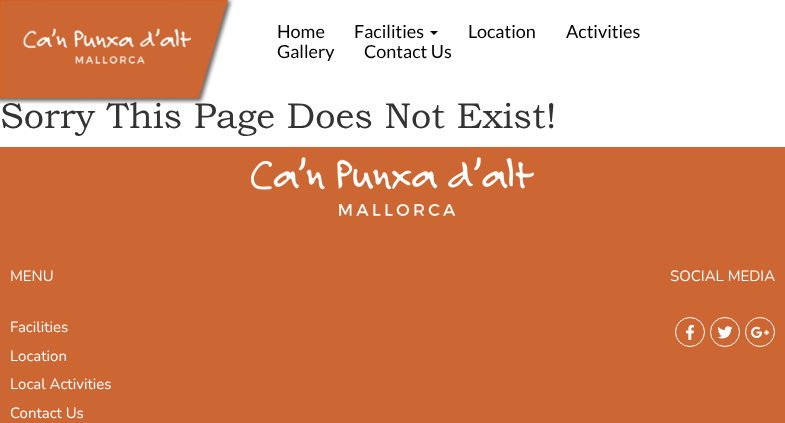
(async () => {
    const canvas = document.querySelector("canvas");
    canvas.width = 785;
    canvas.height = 423;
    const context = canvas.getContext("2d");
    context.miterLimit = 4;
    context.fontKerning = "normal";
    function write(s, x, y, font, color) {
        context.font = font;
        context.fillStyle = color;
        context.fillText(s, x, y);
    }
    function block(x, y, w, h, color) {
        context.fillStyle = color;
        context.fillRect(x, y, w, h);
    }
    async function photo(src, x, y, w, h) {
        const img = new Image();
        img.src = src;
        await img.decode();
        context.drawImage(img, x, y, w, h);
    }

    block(0, 0, 785, 423, "rgb(255, 255, 255)");
    write("Sorry This Page Does Not Exist!", 0, 128, "36px 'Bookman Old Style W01'", "rgb(51, 51, 51)");
    await photo("media/1.png", 0, 0, 234, 104);
    write("Home", 277, 38, "18px Lato", "rgb(0, 0, 0)");
    write("Facilities", 354, 38, "18px Lato", "rgb(0, 0, 0)");
    context.beginPath();
    context.moveTo(430, 31);
    context.lineTo(438, 31);
    context.lineTo(434, 35);
    context.closePath();
    context.fill();
    write("Location", 468, 38, "18px Lato", "rgb(0, 0, 0)");
    write("Activities", 566, 38, "18px Lato", "rgb(0, 0, 0)");
    write("Gallery", 277, 58, "18px Lato", "rgb(0, 0, 0)");
    write("Contact Us", 364, 58, "18px Lato", "rgb(0, 0, 0)");
    block(0, 147, 785, 276, "rgb(204, 102, 51)");
    await photo("media/2.png", 251, 157, 283, 59);
    write("MENU", 10, 281, "15px Nunito", "rgb(255, 255, 255)");
    write("Facilities", 10, 332, "15px Nunito", "rgb(255, 255, 255)");
    write("Location", 10, 361, "15px Nunito", "rgb(255, 255, 255)");
    write("Local Activities", 10, 389, "15px Nunito", "rgb(255, 255, 255)");
    write("Contact Us", 10, 418, "15px Nunito", "rgb(255, 255, 255)");
    write("SOCIAL MEDIA", 670, 281, "15px Nunito", "rgb(255, 255, 255)");
    context.beginPath();
    context.arc(690, 332, 14.5, 0, Math.PI * 2);
    context.strokeStyle = "rgb(255, 255, 255)";
    context.stroke();
    await photo("media/3.png", 686, 324, 8, 16);
    context.beginPath();
    context.arc(725, 332, 14.5, 0, Math.PI * 2);
    context.stroke();
    await photo("media/4.png", 717, 326, 16, 13);
    context.beginPath();
    context.arc(760, 332, 14.5, 0, Math.PI * 2);
    context.stroke();
    await photo("media/5.png", 751, 326, 18, 12);
})();
